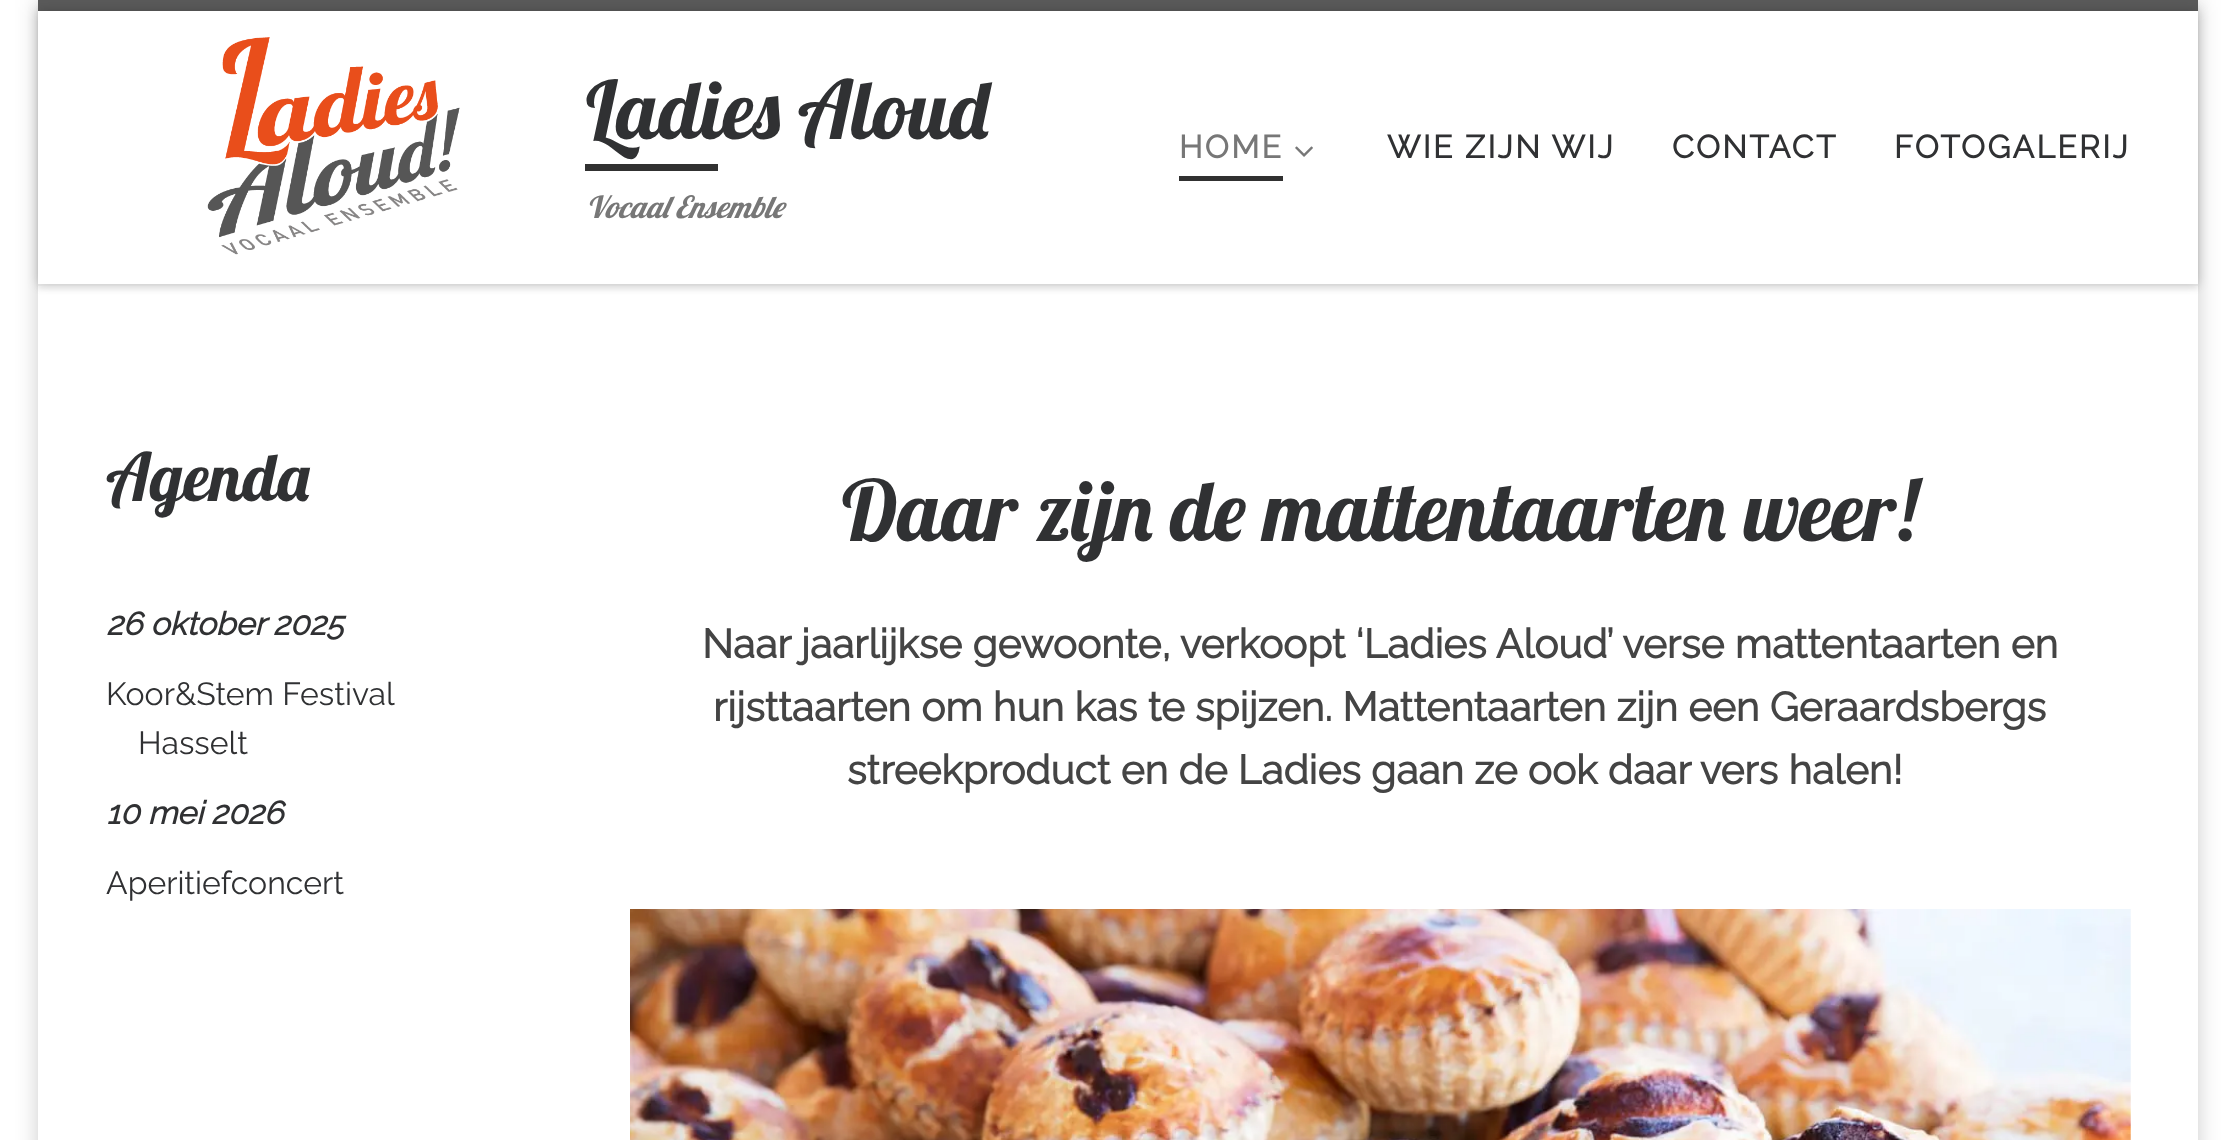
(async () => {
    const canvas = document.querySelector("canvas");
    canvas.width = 2236;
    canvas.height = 1140;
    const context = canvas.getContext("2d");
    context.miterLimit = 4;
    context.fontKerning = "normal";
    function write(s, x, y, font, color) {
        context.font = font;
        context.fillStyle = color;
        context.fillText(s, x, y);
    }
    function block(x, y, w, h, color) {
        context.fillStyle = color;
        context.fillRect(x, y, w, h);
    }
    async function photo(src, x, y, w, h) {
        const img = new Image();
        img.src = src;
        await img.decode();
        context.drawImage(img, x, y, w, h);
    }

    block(0, 0, 2236, 1140, "rgb(255, 255, 255)");
    context.fillStyle = "rgba(0, 0, 0, 0.2)";
    context.filter = "blur(11px)";
    context.beginPath();
    context.rect(38, 0, 2160, 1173);
    context.fill();
    context.filter = "none";
    block(38, 286, 2160, 854, "rgb(255, 255, 255)");
    context.fillStyle = "rgba(102, 102, 102, 0.08)";
    context.filter = "blur(2px)";
    context.beginPath();
    context.rect(38, 5, 2160, 285);
    context.fill();
    context.filter = "none";
    block(38, 0, 2160, 11, "rgb(90, 90, 90)");
    context.fillStyle = "rgb(239, 239, 239)";
    context.beginPath();
    context.moveTo(38, 14);
    context.lineTo(38, 286);
    context.lineTo(2198, 286);
    context.lineTo(2198, 284);
    context.lineTo(38, 284);
    context.closePath();
    context.fill();
    context.fillStyle = "rgba(0, 0, 0, 0.2)";
    context.filter = "blur(5.5px)";
    context.beginPath();
    context.rect(38, 11, 2160, 273);
    context.fill();
    context.filter = "none";
    block(38, 11, 2160, 273, "rgb(255, 255, 255)");
    await photo("media/1.png", 207, 37, 253, 218);
    write("Ladies Aloud", 586, 139, "81px Lobster", "rgb(48, 49, 51)");
    block(585, 164, 133, 7, "rgb(49, 49, 49)");
    write("Vocaal Ensemble", 586, 218, "italic 30.5px Lobster", "rgb(119, 119, 119)");
    context.letterSpacing = "2.25px";
    write("HOME", 1179, 158, "bold 32px Raleway", "rgb(119, 119, 119)");
    block(1179, 176, 104, 5, "rgb(49, 49, 49)");
    await photo("media/2.png", 1295, 146, 18, 11);
    write("WIE ZIJN WIJ", 1387, 158, "bold 32px Raleway", "rgb(48, 49, 51)");
    write("CONTACT", 1672, 158, "bold 32px Raleway", "rgb(48, 49, 51)");
    write("FOTOGALERIJ", 1894, 158, "bold 32px Raleway", "rgb(48, 49, 51)");
    context.letterSpacing = "0px";
    write("Agenda", 106, 501, "66.5px Lobster", "rgb(48, 49, 51)");
    write("26 oktober 2025", 106, 635, "italic bold 32px Raleway", "rgb(48, 49, 51)");
    write("Koor&Stem Festival", 106, 705, "100 32px Raleway", "rgb(48, 49, 51)");
    write("Hasselt", 138, 754, "100 32px Raleway", "rgb(48, 49, 51)");
    write("10 mei 2026", 106, 824, "italic bold 32px Raleway", "rgb(48, 49, 51)");
    write("Aperitiefconcert", 106, 894, "100 32px Raleway", "rgb(48, 49, 51)");
    write("Daar zijn de mattentaarten weer!", 842, 541, "84px Lobster", "rgb(48, 49, 51)");
    write("Naar jaarlijkse gewoonte, verkoopt ‘Ladies Aloud’ verse mattentaarten en", 702, 658, "bold 40.5px Raleway", "rgb(68, 68, 68)");
    write("rijsttaarten om hun kas te spijzen. Mattentaarten zijn een Geraardsbergs", 713, 721, "bold 40.5px Raleway", "rgb(68, 68, 68)");
    write("streekproduct en de Ladies gaan ze ook daar vers halen!", 847, 784, "bold 40.5px Raleway", "rgb(68, 68, 68)");
    await photo("media/3.png", 630, 909, 1501, 231);
})();
